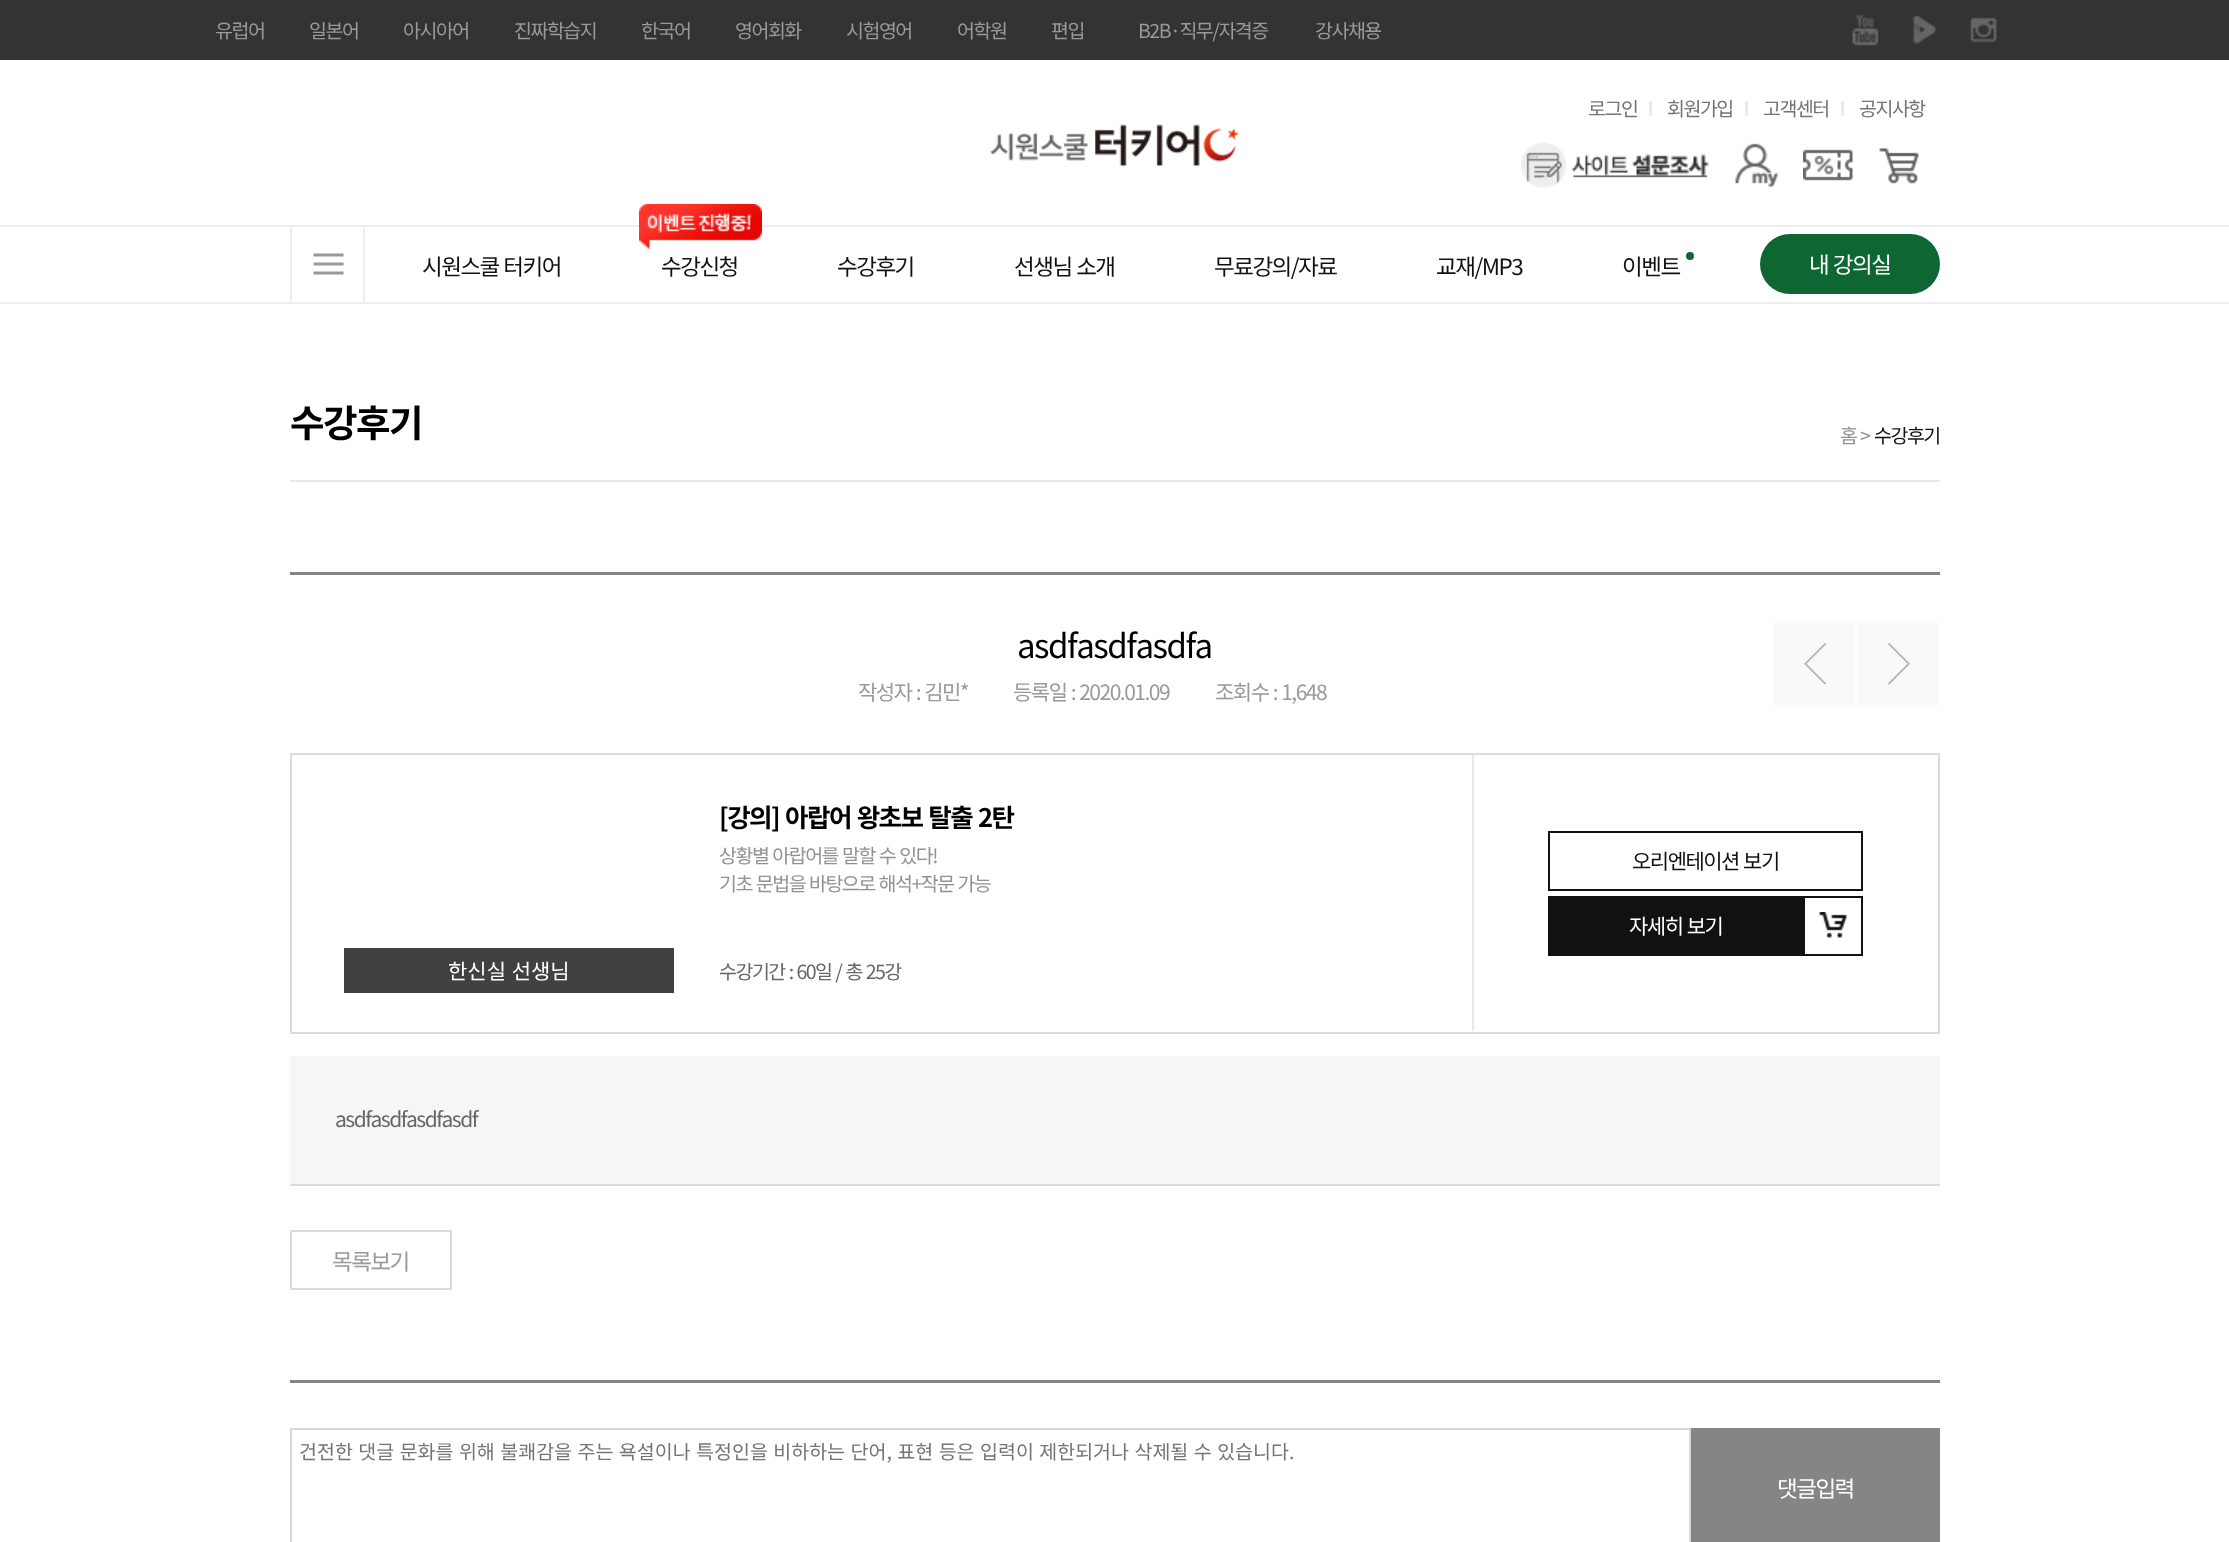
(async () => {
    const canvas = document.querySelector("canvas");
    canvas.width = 2229;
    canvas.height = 1542;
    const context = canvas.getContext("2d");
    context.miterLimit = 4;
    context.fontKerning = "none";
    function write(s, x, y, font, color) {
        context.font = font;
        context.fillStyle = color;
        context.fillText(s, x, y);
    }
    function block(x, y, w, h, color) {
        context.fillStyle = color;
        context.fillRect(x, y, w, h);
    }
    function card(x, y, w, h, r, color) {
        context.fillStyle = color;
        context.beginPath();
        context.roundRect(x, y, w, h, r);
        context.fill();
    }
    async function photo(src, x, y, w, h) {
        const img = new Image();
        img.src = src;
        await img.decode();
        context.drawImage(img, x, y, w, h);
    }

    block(0, 0, 2229, 1542, "rgb(255, 255, 255)");
    block(0, 0, 2229, 60, "rgb(51, 51, 51)");
    context.letterSpacing = "-1.5px";
    write("유럽어", 215, 38, "19.5px Noto Sans KR", "rgb(153, 153, 153)");
    write("일본어", 309, 38, "19.5px Noto Sans KR", "rgb(153, 153, 153)");
    write("아시아어", 403, 38, "19.5px Noto Sans KR", "rgb(153, 153, 153)");
    write("진짜학습지", 514, 38, "19.5px Noto Sans KR", "rgb(153, 153, 153)");
    write("한국어", 641, 38, "19.5px Noto Sans KR", "rgb(153, 153, 153)");
    write("영어회화", 735, 38, "19.5px Noto Sans KR", "rgb(153, 153, 153)");
    write("시험영어", 846, 38, "19.5px Noto Sans KR", "rgb(153, 153, 153)");
    write("어학원", 957, 38, "19.5px Noto Sans KR", "rgb(153, 153, 153)");
    write("편입", 1051, 38, "19.5px Noto Sans KR", "rgb(153, 153, 153)");
    write("B2B·직무/자격증", 1138, 38, "19.5px Noto Sans KR", "rgb(153, 153, 153)");
    write("강사채용", 1315, 38, "19.5px Noto Sans KR", "rgb(153, 153, 153)");
    await photo("media/1.png", 1852, 14, 27, 32);
    await photo("media/2.png", 1912, 15, 25, 29);
    await photo("media/3.png", 1970, 17, 27, 26);
    write("로그인", 1588, 116, "19.5px Noto Sans KR", "rgb(117, 117, 117)");
    block(1649, 101, 3, 15, "rgb(234, 234, 234)");
    write("회원가입", 1667, 116, "19.5px Noto Sans KR", "rgb(117, 117, 117)");
    block(1745, 101, 3, 15, "rgb(234, 234, 234)");
    write("고객센터", 1763, 116, "19.5px Noto Sans KR", "rgb(117, 117, 117)");
    block(1841, 101, 3, 15, "rgb(234, 234, 234)");
    write("공지사항", 1859, 116, "19.5px Noto Sans KR", "rgb(117, 117, 117)");
    await photo("media/4.png", 990, 124, 249, 42);
    await photo("media/5.png", 1521, 142, 188, 46);
    await photo("media/6.png", 1735, 143, 44, 45);
    await photo("media/7.png", 1803, 149, 50, 32);
    await photo("media/8.png", 1879, 148, 40, 36);
    block(0, 225, 2229, 2, "rgb(238, 238, 238)");
    block(0, 302, 2229, 2, "rgb(238, 238, 238)");
    await photo("media/9.png", 313, 253, 31, 22);
    block(363, 227, 2, 75, "rgb(238, 238, 238)");
    block(290, 227, 2, 75, "rgb(238, 238, 238)");
    context.wordSpacing = "1px";
    write("시원스쿨 터키어", 422, 275, "22.5px Noto Sans KR", "rgb(17, 17, 17)");
    await photo("media/10.png", 639, 204, 123, 45);
    context.wordSpacing = "0px";
    write("수강신청", 661, 275, "22.5px Noto Sans KR", "rgb(17, 17, 17)");
    write("수강후기", 837, 275, "22.5px Noto Sans KR", "rgb(17, 17, 17)");
    context.wordSpacing = "1px";
    write("선생님 소개", 1014, 275, "22.5px Noto Sans KR", "rgb(17, 17, 17)");
    context.wordSpacing = "0px";
    write("무료강의/자료", 1214, 275, "22.5px Noto Sans KR", "rgb(17, 17, 17)");
    write("교재/MP3", 1436, 275, "22.5px Noto Sans KR", "rgb(17, 17, 17)");
    write("이벤트", 1622, 275, "22.5px Noto Sans KR", "rgb(17, 17, 17)");
    context.fillStyle = "rgb(14, 103, 50)";
    context.beginPath();
    context.arc(1690, 256, 4, 0, Math.PI * 2);
    context.fill();
    card(1760, 234, 180, 60, 30, "rgb(14, 103, 50)");
    context.wordSpacing = "1px";
    write("내 강의실", 1809, 273, "22.5px Noto Sans KR", "rgb(255, 255, 255)");
    block(290, 480, 1650, 2, "rgb(232, 232, 232)");
    context.wordSpacing = "0px";
    write("수강후기", 290, 437, "bold 37.5px Noto Sans KR", "rgb(0, 0, 0)");
    write("홈", 1840, 443, "19.5px Noto Sans KR", "rgb(146, 146, 146)");
    write(">", 1860, 443, "19.5px Noto Sans KR", "rgb(146, 146, 146)");
    write("수강후기", 1874, 443, "19.5px Noto Sans KR", "rgb(17, 17, 17)");
    block(290, 572, 1650, 3, "rgb(133, 133, 133)");
    block(290, 753, 1650, 2, "rgb(219, 219, 219)");
    write("asdfasdfasdfa", 1017, 658, "33px Noto Sans KR", "rgb(0, 0, 0)");
    await photo("media/11.png", 1773, 623, 82, 82);
    await photo("media/12.png", 1857, 623, 82, 82);
    context.wordSpacing = "1px";
    write("작성자 : 김민*", 858, 700, "21px Noto Sans KR", "rgb(153, 153, 153)");
    write("등록일 : 2020.01.09", 1013, 700, "21px Noto Sans KR", "rgb(153, 153, 153)");
    write("조회수 : 1,648", 1215, 700, "21px Noto Sans KR", "rgb(153, 153, 153)");
    block(1938, 755, 2, 279, "rgb(219, 219, 219)");
    block(290, 1032, 1650, 2, "rgb(219, 219, 219)");
    block(290, 755, 2, 279, "rgb(219, 219, 219)");
    block(1472, 755, 2, 276, "rgb(232, 232, 232)");
    block(344, 948, 330, 45, "rgb(65, 65, 65)");
    context.letterSpacing = "0px";
    write("한신실 선생님", 448, 979, "21px Noto Sans KR", "rgb(255, 255, 255)");
    context.letterSpacing = "-1.5px";
    context.wordSpacing = "1.5px";
    write("[강의] 아랍어 왕초보 탈출 2탄", 719, 827, "bold 25.5px Noto Sans KR", "rgb(0, 0, 0)");
    context.wordSpacing = "1.1px";
    write("상황별 아랍어를 말할 수 있다!", 719, 863, "19.5px Noto Sans KR", "rgb(146, 146, 146)");
    context.wordSpacing = "1px";
    write("기초 문법을 바탕으로 해석+작문 가능", 719, 891, "19.5px Noto Sans KR", "rgb(146, 146, 146)");
    write("수강기간 : 60일 / 총 25강", 719, 979, "19.5px Noto Sans KR", "rgb(102, 102, 102)");
    context.strokeStyle = "rgb(17, 17, 17)";
    context.lineWidth = 2;
    context.strokeRect(1549, 832, 313, 58);
    write("오리엔테이션 보기", 1632, 869, "21px Noto Sans KR", "rgb(17, 17, 17)");
    block(1548, 896, 255, 60, "rgb(17, 17, 17)");
    write("자세히 보기", 1629, 934, "21px Noto Sans KR", "rgb(255, 255, 255)");
    await photo("media/13.png", 1819, 912, 28, 26);
    context.strokeRect(1804, 897, 58, 58);
    block(290, 1056, 1650, 128, "rgb(246, 246, 246)");
    block(290, 1184, 1650, 2, "rgb(219, 219, 219)");
    context.wordSpacing = "0px";
    write("asdfasdfasdfasdf", 335, 1127, "21px Noto Sans KR", "rgb(102, 102, 102)");
    context.strokeStyle = "rgb(219, 219, 219)";
    context.strokeRect(291, 1231, 160, 58);
    write("목록보기", 332, 1270, "22.5px Noto Sans KR", "rgb(153, 153, 153)");
    block(290, 1380, 1650, 3, "rgb(133, 133, 133)");
    context.strokeStyle = "rgb(215, 215, 215)";
    context.strokeRect(291, 1429, 1399, 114);
    context.letterSpacing = "0px";
    context.wordSpacing = "1.1px";
    write("건전한 댓글 문화를 위해 불쾌감을 주는 욕설이나 특정인을 비하하는 단어, 표현 등은 입력이 제한되거나 삭제될 수 있습니다.", 299, 1459, "19.5px Noto Sans KR", "rgb(117, 117, 117)");
    block(1691, 1428, 249, 114, "rgb(133, 133, 133)");
    context.letterSpacing = "-1.5px";
    context.wordSpacing = "0px";
    write("댓글입력", 1777, 1497, "22.5px Noto Sans KR", "rgb(255, 255, 255)");
})();
